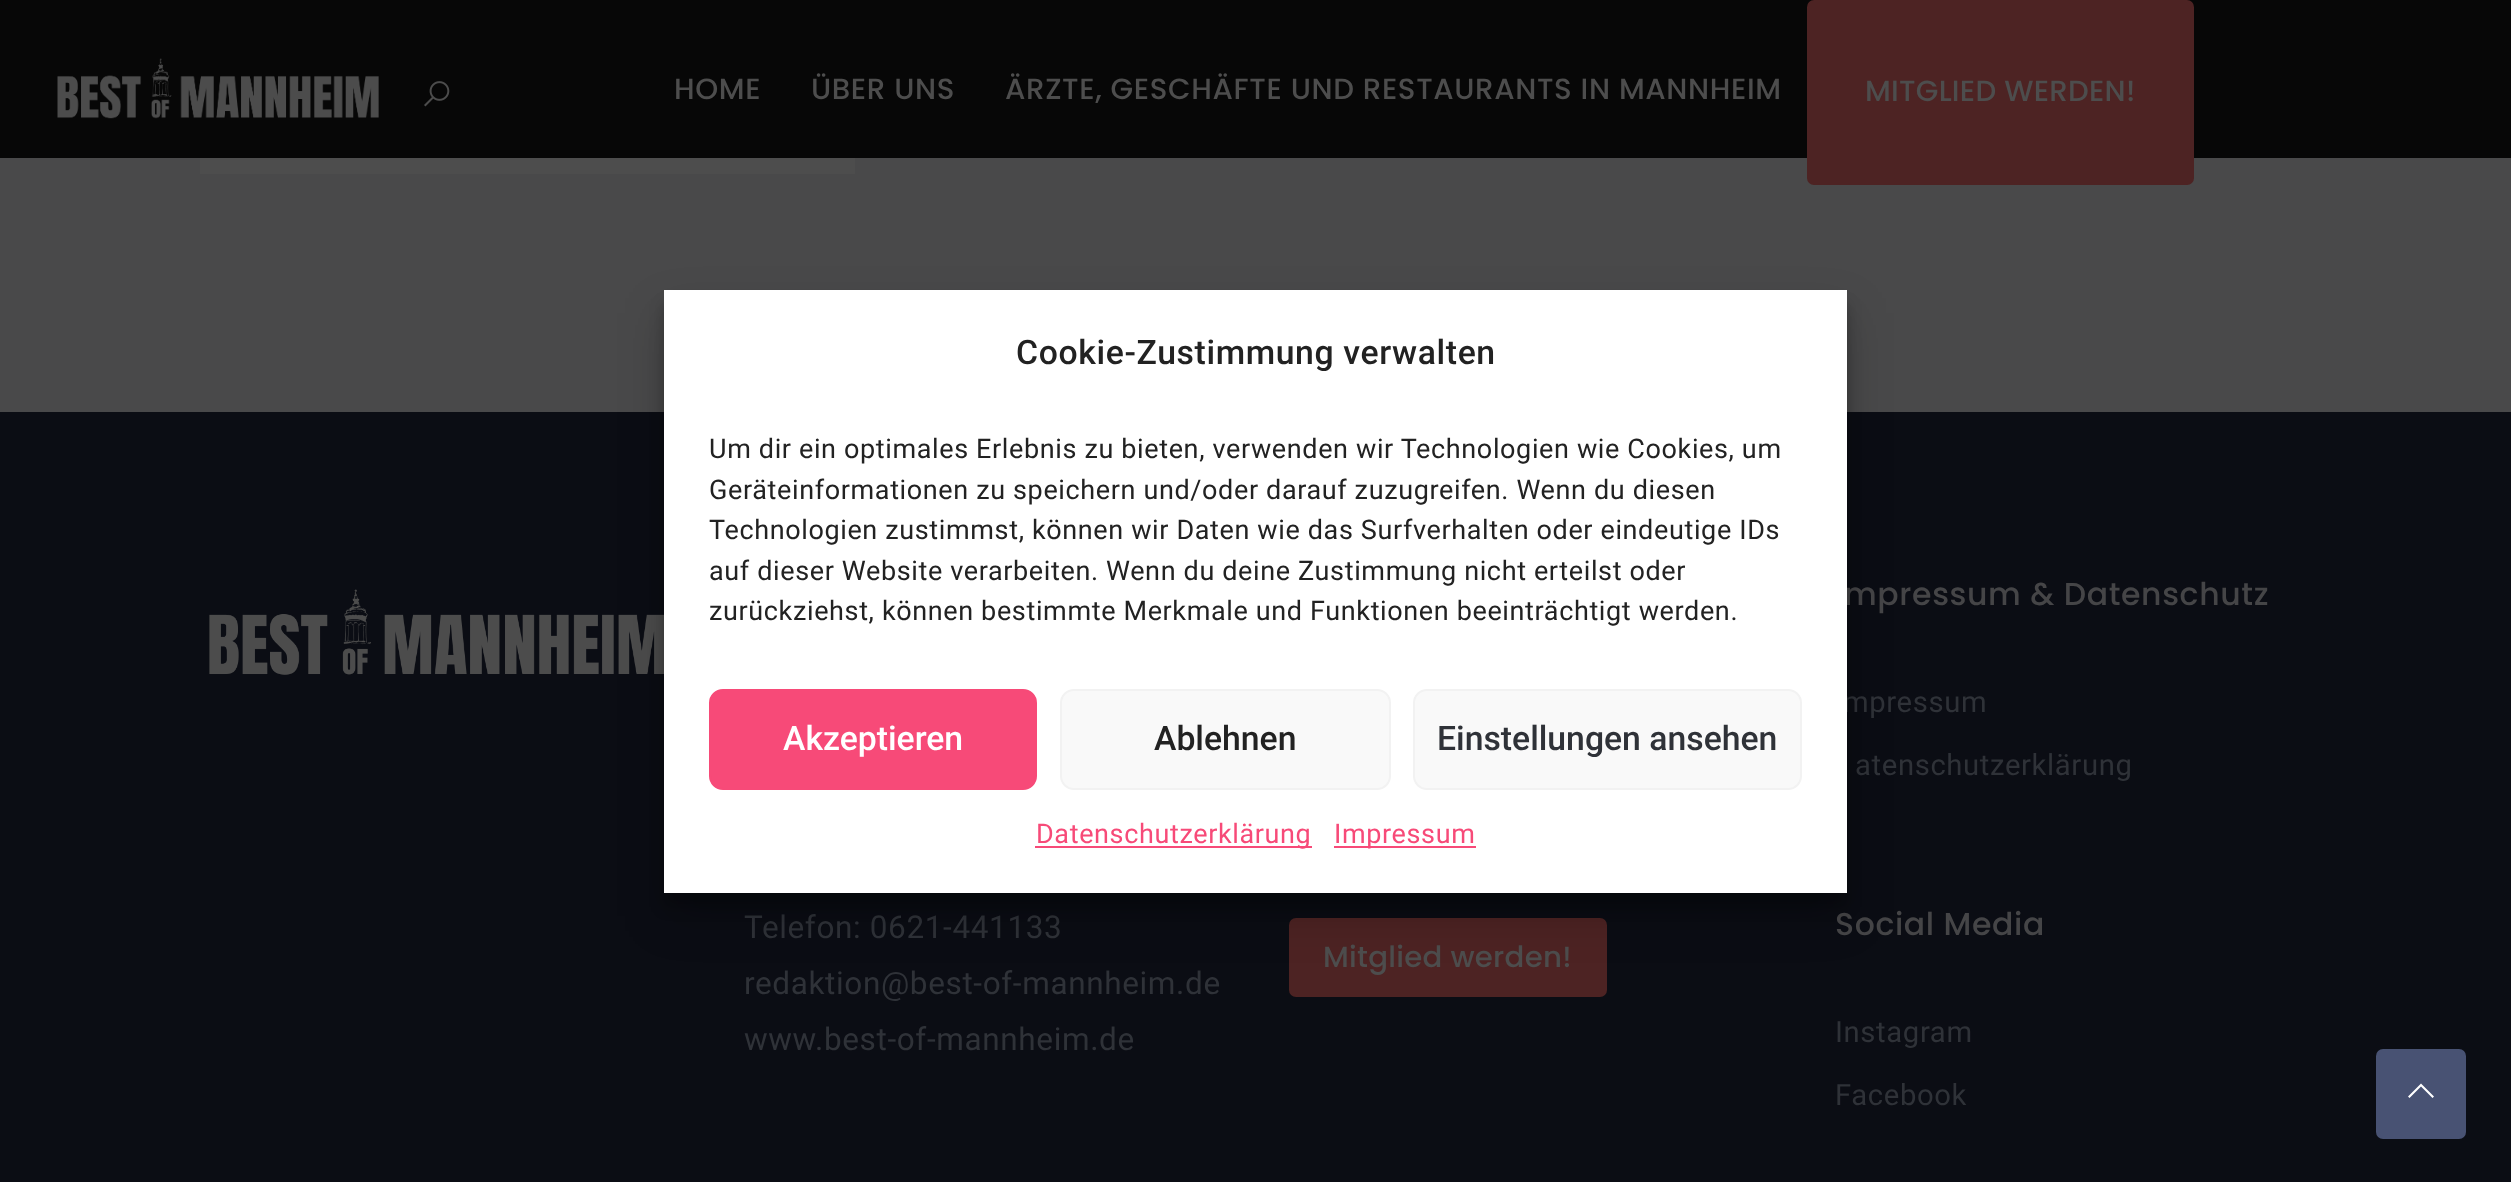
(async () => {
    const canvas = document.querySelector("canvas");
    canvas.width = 2511;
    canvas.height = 1182;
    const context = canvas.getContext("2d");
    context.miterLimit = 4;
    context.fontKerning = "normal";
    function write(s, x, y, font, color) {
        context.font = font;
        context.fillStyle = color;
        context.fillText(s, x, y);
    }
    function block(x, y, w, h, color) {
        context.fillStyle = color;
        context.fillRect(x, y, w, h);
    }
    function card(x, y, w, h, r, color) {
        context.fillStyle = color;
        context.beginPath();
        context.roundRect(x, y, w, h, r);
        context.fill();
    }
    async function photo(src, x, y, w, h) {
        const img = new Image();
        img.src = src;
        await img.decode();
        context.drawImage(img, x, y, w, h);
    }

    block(0, 0, 2511, 1182, "rgb(73, 73, 74)");
    block(0, 0, 2511, 158, "rgb(7, 7, 7)");
    await photo("media/1.png", 57, 58, 322, 61);
    await photo("media/2.png", 424, 81, 26, 26);
    context.letterSpacing = "0.63px";
    write("HOME", 674, 99, "500 29.25px Poppins", "rgb(77, 77, 77)");
    write("ÜBER UNS", 811, 99, "500 29.25px Poppins", "rgb(77, 77, 77)");
    write("ÄRZTE, GESCHÄFTE UND RESTAURANTS IN MANNHEIM", 1005, 99, "500 29.25px Poppins", "rgb(77, 77, 77)");
    card(1807, 0, 387, 185, 7, "rgb(77, 35, 35)");
    context.letterSpacing = "0.25px";
    write("MITGLIED WERDEN!", 1865, 101, "500 29.25px Poppins", "rgb(77, 77, 77)");
    block(200, 158, 655, 16, "rgb(77, 77, 77)");
    block(0, 412, 2511, 770, "rgb(11, 13, 20)");
    await photo("media/3.png", 209, 589, 455, 86);
    context.letterSpacing = "0.63px";
    write("mpressum & Datenschutz", 1844, 605, "500 31.5px Poppins", "rgb(69, 69, 71)");
    write("mpressum", 1843, 712, "29.25px Roboto", "rgb(47, 50, 56)");
    write("atenschutzerklärung", 1855, 775, "29.25px Roboto", "rgb(47, 50, 56)");
    write("Social Media", 1835, 935, "500 31.5px Poppins", "rgb(69, 69, 71)");
    write("Instagram", 1835, 1042, "29.25px Roboto", "rgb(47, 50, 56)");
    write("Facebook", 1835, 1105, "29.25px Roboto", "rgb(47, 50, 56)");
    write("Telefon: 0621-441133", 744, 938, "31.5px Roboto", "rgb(47, 50, 56)");
    write("redaktion@best-of-mannheim.de", 744, 994, "31.5px Roboto", "rgb(47, 50, 56)");
    write("www.best-of-mannheim.de", 744, 1050, "31.5px Roboto", "rgb(47, 50, 56)");
    card(1289, 918, 318, 79, 7, "rgb(77, 35, 35)");
    context.letterSpacing = "0.25px";
    write("Mitglied werden!", 1323, 967, "500 29.25px Poppins", "rgb(77, 77, 77)");
    card(2376, 1049, 90, 90, 7, "rgb(72, 82, 115)");
    context.fillStyle = "rgb(255, 255, 255)";
    context.beginPath();
    context.moveTo(2421, 1083.5);
    context.lineTo(2434, 1096.5);
    context.lineTo(2432.5, 1098);
    context.lineTo(2421, 1086.5);
    context.lineTo(2409.5, 1098);
    context.lineTo(2408, 1096.5);
    context.closePath();
    context.fill();
    context.fillStyle = "rgba(0, 0, 0, 0.23)";
    context.filter = "blur(7px)";
    context.beginPath();
    context.rect(664, 304, 1183, 603);
    context.fill();
    context.filter = "none";
    context.fillStyle = "rgba(0, 0, 0, 0.19)";
    context.filter = "blur(22.5px)";
    context.beginPath();
    context.rect(664, 313, 1183, 603);
    context.fill();
    context.filter = "none";
    block(664, 290, 1183, 603, "rgb(255, 255, 255)");
    context.letterSpacing = "0.63px";
    write("Cookie-Zustimmung verwalten", 1016, 364, "500 33.75px Roboto", "rgb(34, 34, 34)");
    write("Um dir ein optimales Erlebnis zu bieten, verwenden wir Technologien wie Cookies, um", 709, 458, "27px Roboto", "rgb(34, 34, 34)");
    write("Geräteinformationen zu speichern und/oder darauf zuzugreifen. Wenn du diesen", 709, 499, "27px Roboto", "rgb(34, 34, 34)");
    write("Technologien zustimmst, können wir Daten wie das Surfverhalten oder eindeutige IDs", 709, 539, "27px Roboto", "rgb(34, 34, 34)");
    write("auf dieser Website verarbeiten. Wenn du deine Zustimmung nicht erteilst oder", 709, 580, "27px Roboto", "rgb(34, 34, 34)");
    write("zurückziehst, können bestimmte Merkmale und Funktionen beeinträchtigt werden.", 709, 620, "27px Roboto", "rgb(34, 34, 34)");
    context.fillStyle = "rgb(247, 74, 120)";
    context.beginPath();
    context.roundRect(710, 690, 326, 99, 13);
    context.fill();
    context.strokeStyle = "rgb(247, 74, 120)";
    context.lineWidth = 2;
    context.stroke();
    context.letterSpacing = "0px";
    write("Akzeptieren", 783, 750, "500 33.75px Roboto", "rgb(255, 255, 255)");
    context.fillStyle = "rgb(249, 249, 249)";
    context.beginPath();
    context.roundRect(1061, 690, 329, 99, 13);
    context.fill();
    context.strokeStyle = "rgb(242, 242, 242)";
    context.stroke();
    write("Ablehnen", 1154, 750, "500 33.75px Roboto", "rgb(34, 34, 34)");
    context.fillStyle = "rgb(249, 249, 249)";
    context.beginPath();
    context.roundRect(1414, 690, 387, 99, 13);
    context.fill();
    context.stroke();
    write("Einstellungen ansehen", 1437, 750, "500 33.75px Roboto", "rgb(47, 50, 56)");
    block(1035, 846, 277, 2, "rgb(247, 74, 120)");
    context.letterSpacing = "0.63px";
    write("Datenschutzerklärung", 1036, 843, "27px Roboto", "rgb(247, 74, 120)");
    block(1334, 846, 142, 2, "rgb(247, 74, 120)");
    write("Impressum", 1334, 843, "27px Roboto", "rgb(247, 74, 120)");
})();
